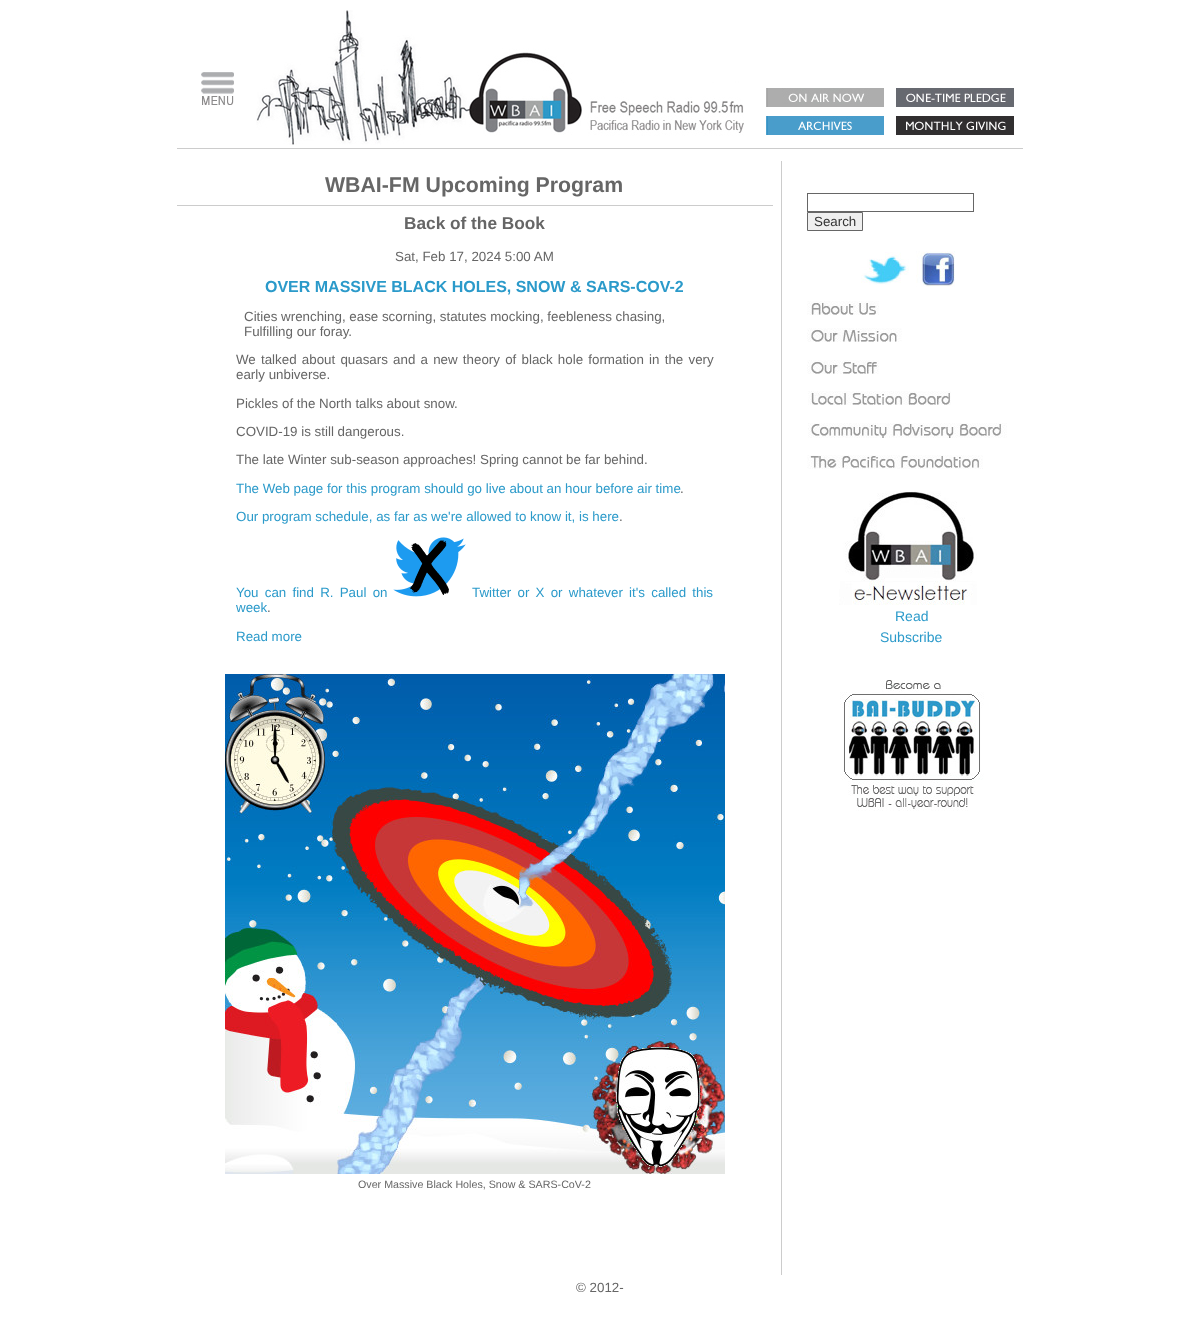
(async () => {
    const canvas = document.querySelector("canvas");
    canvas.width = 1199;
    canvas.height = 1325;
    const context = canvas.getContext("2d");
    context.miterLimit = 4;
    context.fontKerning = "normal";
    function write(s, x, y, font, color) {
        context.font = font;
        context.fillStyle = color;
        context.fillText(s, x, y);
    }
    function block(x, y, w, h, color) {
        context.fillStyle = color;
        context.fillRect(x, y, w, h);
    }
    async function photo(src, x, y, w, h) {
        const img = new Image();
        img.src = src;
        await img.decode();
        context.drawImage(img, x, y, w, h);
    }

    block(0, 0, 1199, 1325, "rgb(255, 255, 255)");
    block(177, 148, 846, 1, "rgb(204, 204, 204)");
    await photo("media/1.png", 201, 72, 33, 33);
    await photo("media/2.png", 256, 10, 488, 135);
    await photo("media/3.png", 766, 88, 118, 19);
    await photo("media/4.png", 896, 88, 118, 19);
    await photo("media/5.png", 766, 116, 118, 19);
    await photo("media/6.png", 896, 116, 118, 19);
    block(781, 161, 1, 1114, "rgb(204, 204, 204)");
    write("WBAI-FM Upcoming Program", 325, 192, "bold 21.3px Liberation Sans", "rgb(102, 102, 102)");
    block(177, 205, 596, 1, "rgb(204, 204, 204)");
    write("Back of the Book", 404, 229, "bold 17.25px Liberation Sans", "rgb(102, 102, 102)");
    write("Sat, Feb 17, 2024 5:00 AM", 395, 261, "13.35px Liberation Sans", "rgb(102, 102, 102)");
    write("OVER MASSIVE BLACK HOLES, SNOW & SARS-COV-2", 265, 292, "bold 16px Liberation Sans", "rgb(43, 154, 202)");
    write("Cities wrenching, ease scorning, statutes mocking, feebleness chasing,", 244, 321, "13.35px Liberation Sans", "rgb(102, 102, 102)");
    write("Fulfilling our foray.", 244, 336, "13.35px Liberation Sans", "rgb(102, 102, 102)");
    context.wordSpacing = "1.5px";
    write("We talked about quasars and a new theory of black hole formation in the very", 236, 364, "13.35px Liberation Sans", "rgb(102, 102, 102)");
    context.wordSpacing = "0px";
    write("early unbiverse.", 236, 379, "13.35px Liberation Sans", "rgb(102, 102, 102)");
    write("Pickles of the North talks about snow.", 236, 408, "13.35px Liberation Sans", "rgb(102, 102, 102)");
    write("COVID-19 is still dangerous.", 236, 436, "13.35px Liberation Sans", "rgb(102, 102, 102)");
    write("The late Winter sub-season approaches! Spring cannot be far behind.", 236, 464, "13.35px Liberation Sans", "rgb(102, 102, 102)");
    write("The Web page for this program should go live about an hour before air time", 236, 493, "13.35px Liberation Sans", "rgb(43, 154, 202)");
    write(".", 680, 493, "13.35px Liberation Sans", "rgb(102, 102, 102)");
    write("Our program schedule, as far as we're allowed to know it, is here", 236, 521, "13.35px Liberation Sans", "rgb(43, 154, 202)");
    write(".", 619, 521, "13.35px Liberation Sans", "rgb(102, 102, 102)");
    context.wordSpacing = "2.5px";
    write("You can find R. Paul on", 236, 597, "13.35px Liberation Sans", "rgb(43, 154, 202)");
    await photo("media/7.png", 393, 537, 73, 60);
    write("Twitter or X or whatever it's called this", 472, 597, "13.35px Liberation Sans", "rgb(43, 154, 202)");
    context.wordSpacing = "0px";
    write("week", 236, 612, "13.35px Liberation Sans", "rgb(43, 154, 202)");
    write(".", 267, 612, "13.35px Liberation Sans", "rgb(102, 102, 102)");
    write("Read more", 236, 641, "13.35px Liberation Sans", "rgb(43, 154, 202)");
    await photo("media/8.png", 225, 674, 500, 500);
    write("Over Massive Black Holes, Snow & SARS-CoV-2", 358, 1188, "10.7px Liberation Sans", "rgb(102, 102, 102)");
    context.strokeStyle = "rgb(102, 102, 102)";
    context.strokeRect(807.5, 193.5, 166, 18);
    context.fillStyle = "rgb(239, 239, 239)";
    context.beginPath();
    context.rect(807.5, 212.5, 55, 18);
    context.fill();
    context.stroke();
    write("Search", 814, 226, "13.35px Liberation Sans", "rgb(51, 51, 51)");
    await photo("media/9.png", 861, 252, 48, 33);
    await photo("media/10.png", 916, 251, 39, 36);
    await photo("media/11.png", 807, 301, 72, 14);
    await photo("media/12.png", 807, 328, 95, 14);
    await photo("media/13.png", 807, 360, 72, 14);
    await photo("media/14.png", 808, 391, 143, 14);
    await photo("media/15.png", 808, 423, 199, 15);
    await photo("media/16.png", 807, 455, 176, 14);
    await photo("media/17.png", 839, 491, 138, 114);
    write("Read", 895, 621, "14px Liberation Sans", "rgb(43, 154, 202)");
    write("Subscribe", 880, 642, "14px Liberation Sans", "rgb(43, 154, 202)");
    await photo("media/18.png", 840, 680, 144, 131);
    write("© 2012-", 576, 1292, "13.35px Liberation Sans", "rgb(102, 102, 102)");
})();
